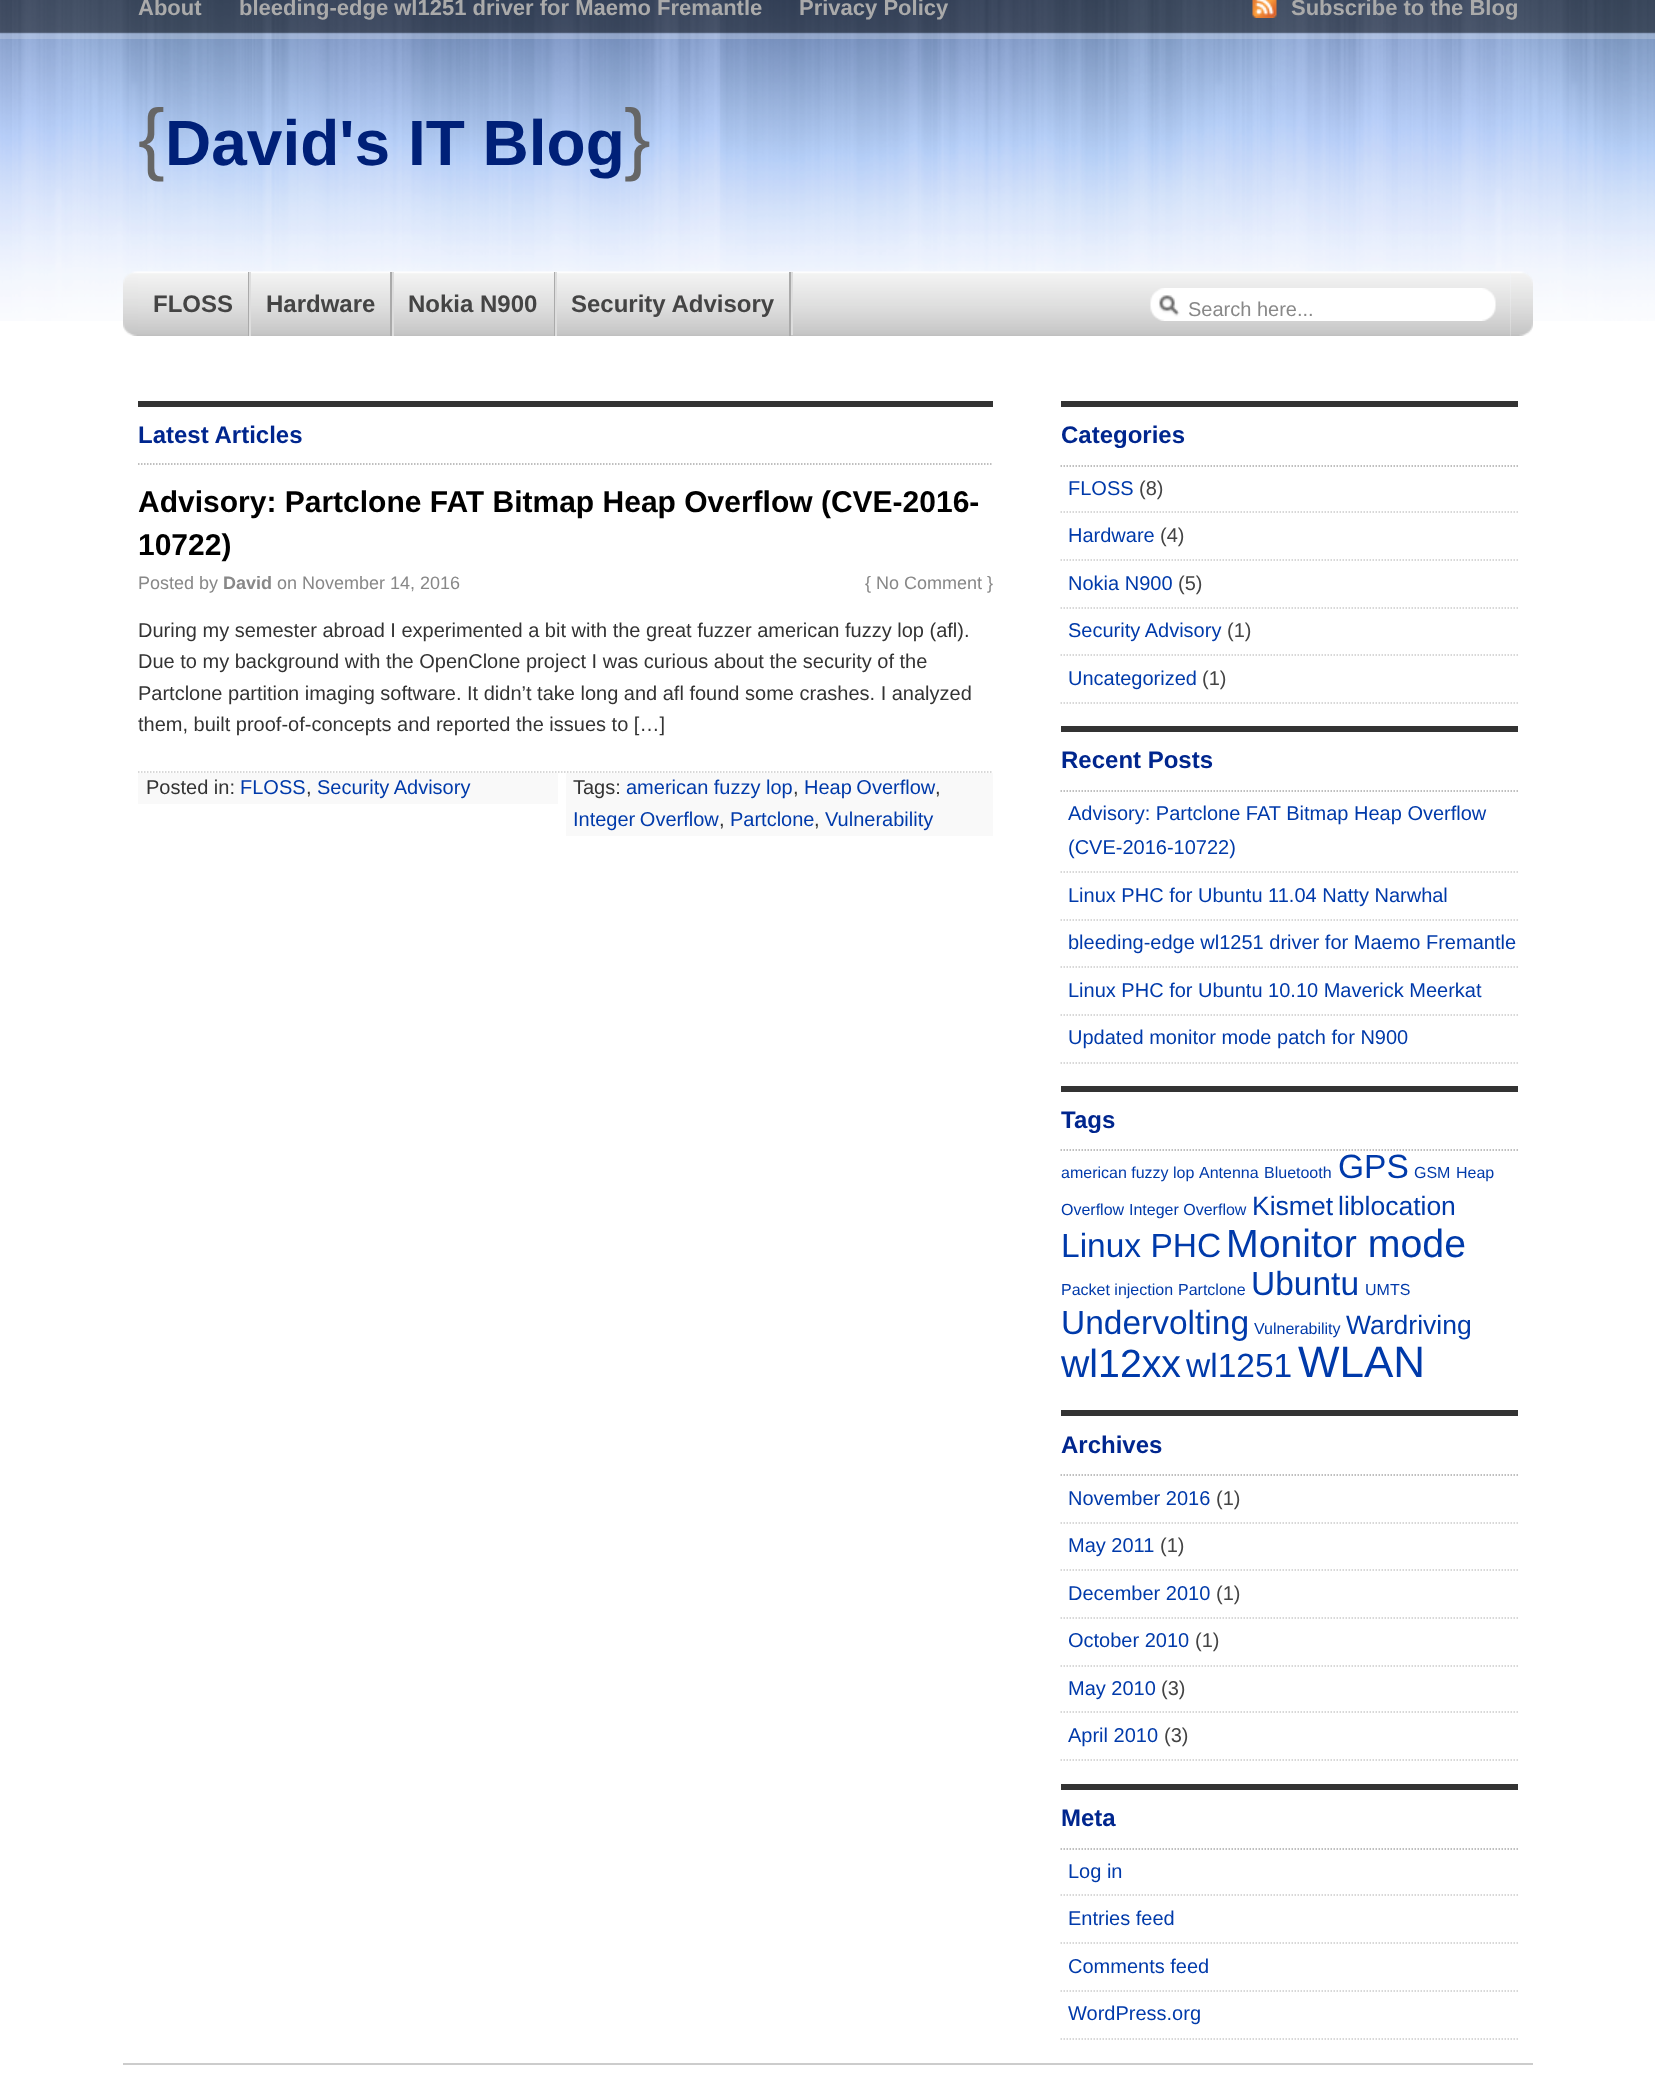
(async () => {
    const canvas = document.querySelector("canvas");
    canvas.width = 1655;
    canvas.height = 2074;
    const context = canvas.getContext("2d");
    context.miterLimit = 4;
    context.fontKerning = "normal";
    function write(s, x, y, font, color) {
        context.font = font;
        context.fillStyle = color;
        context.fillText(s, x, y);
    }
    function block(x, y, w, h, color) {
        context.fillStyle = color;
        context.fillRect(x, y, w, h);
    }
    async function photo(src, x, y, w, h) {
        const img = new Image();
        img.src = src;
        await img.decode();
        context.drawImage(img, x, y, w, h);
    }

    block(0, 0, 1655, 2074, "rgb(255, 255, 255)");
    await photo("media/1.png", 0, 0, 1655, 321);
    await photo("media/2.png", 0, 0, 1655, 39);
    write("About", 138, 15, "bold 22px Liberation Sans", "rgb(170, 170, 170)");
    write("bleeding-edge wl1251 driver for Maemo Fremantle", 239, 15, "bold 22px Liberation Sans", "rgb(170, 170, 170)");
    write("Privacy Policy", 799, 15, "bold 22px Liberation Sans", "rgb(170, 170, 170)");
    await photo("media/3.png", 1252, 0, 25, 18);
    write("Subscribe to the Blog", 1291, 15, "bold 22px Liberation Sans", "rgb(170, 170, 170)");
    write("{", 138, 165, "80px Liberation Sans", "rgb(102, 102, 102)");
    write("David's IT Blog", 165, 165, "bold 64px Liberation Sans", "rgb(0, 32, 120)");
    write("}", 624, 165, "80px Liberation Sans", "rgb(102, 102, 102)");
    await photo("media/4.png", 123, 271, 15, 65);
    await photo("media/5.png", 138, 271, 1373, 65);
    block(248, 272, 1, 64, "rgb(170, 170, 170)");
    write("FLOSS", 153, 312, "bold 24px Liberation Sans", "rgb(68, 68, 68)");
    block(390, 272, 2, 64, "rgb(170, 170, 170)");
    block(249, 272, 2, 64, "rgb(221, 221, 221)");
    write("Hardware", 266, 312, "bold 24px Liberation Sans", "rgb(68, 68, 68)");
    block(554, 272, 1, 64, "rgb(170, 170, 170)");
    block(392, 272, 2, 64, "rgb(221, 221, 221)");
    write("Nokia N900", 408, 312, "bold 24px Liberation Sans", "rgb(68, 68, 68)");
    block(789, 272, 2, 64, "rgb(170, 170, 170)");
    block(555, 272, 2, 64, "rgb(221, 221, 221)");
    write("Security Advisory", 571, 312, "bold 24px Liberation Sans", "rgb(68, 68, 68)");
    block(791, 272, 2, 63, "rgb(221, 221, 221)");
    await photo("media/6.png", 1150, 288, 346, 33);
    write("Search here...", 1188, 316, "20px Liberation Sans", "rgb(136, 136, 136)");
    await photo("media/7.png", 1510, 271, 23, 65);
    block(138, 401, 855, 6, "rgb(51, 51, 51)");
    context.beginPath();
    context.moveTo(138, 464);
    context.lineTo(993, 464);
    context.strokeStyle = "rgb(170, 170, 170)";
    context.lineWidth = 1.5;
    context.setLineDash([1.5, 1.5]);
    context.stroke();
    write("Latest Articles", 138, 443, "bold 24px Liberation Sans", "rgb(0, 38, 142)");
    write("Advisory: Partclone FAT Bitmap Heap Overflow (CVE-2016-", 138, 512, "bold 30px Liberation Sans", "rgb(0, 0, 0)");
    write("10722)", 138, 555, "bold 30px Liberation Sans", "rgb(0, 0, 0)");
    write("Posted by", 138, 589, "18px Liberation Sans", "rgb(136, 136, 136)");
    write("David", 223, 589, "bold 18px Liberation Sans", "rgb(136, 136, 136)");
    write("on November 14, 2016", 277, 589, "18px Liberation Sans", "rgb(136, 136, 136)");
    write("{ No Comment }", 865, 589, "18px Liberation Sans", "rgb(136, 136, 136)");
    context.beginPath();
    context.moveTo(138, 772);
    context.lineTo(993, 772);
    context.strokeStyle = "rgb(204, 204, 204)";
    context.stroke();
    write("During my semester abroad I experimented a bit with the great fuzzer american fuzzy lop (afl).", 138, 637, "20px Liberation Sans", "rgb(51, 51, 51)");
    write("Due to my background with the OpenClone project I was curious about the security of the", 138, 668, "20px Liberation Sans", "rgb(51, 51, 51)");
    write("Partclone partition imaging software. It didn’t take long and afl found some crashes. I analyzed", 138, 700, "20px Liberation Sans", "rgb(51, 51, 51)");
    write("them, built proof-of-concepts and reported the issues to […]", 138, 731, "20px Liberation Sans", "rgb(51, 51, 51)");
    block(138, 773, 420, 31, "rgb(249, 249, 249)");
    write("Posted in:", 146, 794, "20px Liberation Sans", "rgb(51, 51, 51)");
    write("FLOSS", 240, 794, "20px Liberation Sans", "rgb(0, 58, 170)");
    write(",", 306, 794, "20px Liberation Sans", "rgb(51, 51, 51)");
    write("Security Advisory", 317, 794, "20px Liberation Sans", "rgb(0, 58, 170)");
    block(566, 773, 427, 63, "rgb(249, 249, 249)");
    write("Tags:", 573, 794, "20px Liberation Sans", "rgb(51, 51, 51)");
    write("american fuzzy lop", 626, 794, "20px Liberation Sans", "rgb(0, 58, 170)");
    write(",", 793, 794, "20px Liberation Sans", "rgb(51, 51, 51)");
    context.wordSpacing = "-1px";
    write("Heap Overflow", 804, 794, "20px Liberation Sans", "rgb(0, 58, 170)");
    context.wordSpacing = "0px";
    write(",", 935, 794, "20px Liberation Sans", "rgb(51, 51, 51)");
    context.wordSpacing = "-1px";
    write("Integer Overflow", 573, 826, "20px Liberation Sans", "rgb(0, 58, 170)");
    context.wordSpacing = "0px";
    write(",", 719, 826, "20px Liberation Sans", "rgb(51, 51, 51)");
    write("Partclone", 730, 826, "20px Liberation Sans", "rgb(0, 58, 170)");
    write(",", 814, 826, "20px Liberation Sans", "rgb(51, 51, 51)");
    write("Vulnerability", 825, 826, "20px Liberation Sans", "rgb(0, 58, 170)");
    block(1061, 401, 457, 6, "rgb(51, 51, 51)");
    context.beginPath();
    context.moveTo(1060.5, 466);
    context.lineTo(1518, 466);
    context.strokeStyle = "rgb(170, 170, 170)";
    context.stroke();
    write("Categories", 1061, 443, "bold 24px Liberation Sans", "rgb(0, 38, 142)");
    context.beginPath();
    context.moveTo(1060.5, 512);
    context.lineTo(1518, 512);
    context.strokeStyle = "rgb(204, 204, 204)";
    context.stroke();
    write("FLOSS", 1068, 495, "20px Liberation Sans", "rgb(0, 58, 170)");
    write("(8)", 1139, 495, "20px Liberation Sans", "rgb(68, 68, 68)");
    context.beginPath();
    context.moveTo(1060.5, 560);
    context.lineTo(1518, 560);
    context.stroke();
    write("Hardware", 1068, 542, "20px Liberation Sans", "rgb(0, 58, 170)");
    write("(4)", 1160, 542, "20px Liberation Sans", "rgb(68, 68, 68)");
    context.beginPath();
    context.moveTo(1060.5, 608);
    context.lineTo(1518, 608);
    context.stroke();
    write("Nokia N900", 1068, 590, "20px Liberation Sans", "rgb(0, 58, 170)");
    write("(5)", 1178, 590, "20px Liberation Sans", "rgb(68, 68, 68)");
    context.beginPath();
    context.moveTo(1060.5, 655);
    context.lineTo(1518, 655);
    context.stroke();
    write("Security Advisory", 1068, 637, "20px Liberation Sans", "rgb(0, 58, 170)");
    write("(1)", 1227, 637, "20px Liberation Sans", "rgb(68, 68, 68)");
    context.beginPath();
    context.moveTo(1060.5, 703);
    context.lineTo(1518, 703);
    context.stroke();
    write("Uncategorized", 1068, 685, "20px Liberation Sans", "rgb(0, 58, 170)");
    write("(1)", 1202, 685, "20px Liberation Sans", "rgb(68, 68, 68)");
    block(1061, 726, 457, 6, "rgb(51, 51, 51)");
    context.beginPath();
    context.moveTo(1060.5, 791);
    context.lineTo(1518, 791);
    context.strokeStyle = "rgb(170, 170, 170)";
    context.stroke();
    write("Recent Posts", 1061, 768, "bold 24px Liberation Sans", "rgb(0, 38, 142)");
    context.beginPath();
    context.moveTo(1060.5, 872);
    context.lineTo(1518, 872);
    context.strokeStyle = "rgb(204, 204, 204)";
    context.stroke();
    write("Advisory: Partclone FAT Bitmap Heap Overflow", 1068, 820, "20px Liberation Sans", "rgb(0, 58, 170)");
    write("(CVE-2016-10722)", 1068, 854, "20px Liberation Sans", "rgb(0, 58, 170)");
    context.beginPath();
    context.moveTo(1060.5, 920);
    context.lineTo(1518, 920);
    context.stroke();
    write("Linux PHC for Ubuntu 11.04 Natty Narwhal", 1068, 902, "20px Liberation Sans", "rgb(0, 58, 170)");
    context.beginPath();
    context.moveTo(1060.5, 967);
    context.lineTo(1518, 967);
    context.stroke();
    write("bleeding-edge wl1251 driver for Maemo Fremantle", 1068, 949, "20px Liberation Sans", "rgb(0, 58, 170)");
    context.beginPath();
    context.moveTo(1060.5, 1015);
    context.lineTo(1518, 1015);
    context.stroke();
    write("Linux PHC for Ubuntu 10.10 Maverick Meerkat", 1068, 997, "20px Liberation Sans", "rgb(0, 58, 170)");
    context.beginPath();
    context.moveTo(1060.5, 1063);
    context.lineTo(1518, 1063);
    context.stroke();
    write("Updated monitor mode patch for N900", 1068, 1044, "20px Liberation Sans", "rgb(0, 58, 170)");
    block(1061, 1086, 457, 6, "rgb(51, 51, 51)");
    context.beginPath();
    context.moveTo(1060.5, 1150);
    context.lineTo(1518, 1150);
    context.strokeStyle = "rgb(170, 170, 170)";
    context.stroke();
    write("Tags", 1061, 1128, "bold 24px Liberation Sans", "rgb(0, 38, 142)");
    write("american fuzzy lop", 1061, 1178, "16px Liberation Sans", "rgb(0, 58, 170)");
    write("Antenna", 1199, 1178, "16px Liberation Sans", "rgb(0, 58, 170)");
    write("Bluetooth", 1264, 1178, "16px Liberation Sans", "rgb(0, 58, 170)");
    write("GPS", 1338, 1178, "33.5px Liberation Sans", "rgb(0, 58, 170)");
    write("GSM", 1414, 1178, "16px Liberation Sans", "rgb(0, 58, 170)");
    write("Heap", 1456, 1178, "16px Liberation Sans", "rgb(0, 58, 170)");
    write("Overflow", 1061, 1215, "16px Liberation Sans", "rgb(0, 58, 170)");
    write("Integer Overflow", 1129, 1215, "16px Liberation Sans", "rgb(0, 58, 170)");
    write("Kismet", 1252, 1215, "26.5px Liberation Sans", "rgb(0, 58, 170)");
    write("liblocation", 1338, 1215, "26.5px Liberation Sans", "rgb(0, 58, 170)");
    write("Linux PHC", 1061, 1257, "33.5px Liberation Sans", "rgb(0, 58, 170)");
    write("Monitor mode", 1226, 1257, "39.25px Liberation Sans", "rgb(0, 58, 170)");
    write("Packet injection", 1061, 1295, "16px Liberation Sans", "rgb(0, 58, 170)");
    write("Partclone", 1178, 1295, "16px Liberation Sans", "rgb(0, 58, 170)");
    write("Ubuntu", 1251, 1295, "33.5px Liberation Sans", "rgb(0, 58, 170)");
    write("UMTS", 1365, 1295, "16px Liberation Sans", "rgb(0, 58, 170)");
    write("Undervolting", 1061, 1334, "33.5px Liberation Sans", "rgb(0, 58, 170)");
    write("Vulnerability", 1254, 1334, "16px Liberation Sans", "rgb(0, 58, 170)");
    write("Wardriving", 1346, 1334, "26.5px Liberation Sans", "rgb(0, 58, 170)");
    write("wl12xx", 1061, 1377, "39.25px Liberation Sans", "rgb(0, 58, 170)");
    write("wl1251", 1186, 1377, "33.5px Liberation Sans", "rgb(0, 58, 170)");
    write("WLAN", 1298, 1377, "44px Liberation Sans", "rgb(0, 58, 170)");
    block(1061, 1410, 457, 6, "rgb(51, 51, 51)");
    context.beginPath();
    context.moveTo(1060.5, 1475);
    context.lineTo(1518, 1475);
    context.stroke();
    write("Archives", 1061, 1453, "bold 24px Liberation Sans", "rgb(0, 38, 142)");
    context.beginPath();
    context.moveTo(1060.5, 1523);
    context.lineTo(1518, 1523);
    context.strokeStyle = "rgb(204, 204, 204)";
    context.stroke();
    write("November 2016", 1068, 1505, "20px Liberation Sans", "rgb(0, 58, 170)");
    write("(1)", 1216, 1505, "20px Liberation Sans", "rgb(68, 68, 68)");
    context.beginPath();
    context.moveTo(1060.5, 1570);
    context.lineTo(1518, 1570);
    context.stroke();
    write("May 2011", 1068, 1552, "20px Liberation Sans", "rgb(0, 58, 170)");
    write("(1)", 1160, 1552, "20px Liberation Sans", "rgb(68, 68, 68)");
    context.beginPath();
    context.moveTo(1060.5, 1618);
    context.lineTo(1518, 1618);
    context.stroke();
    write("December 2010", 1068, 1600, "20px Liberation Sans", "rgb(0, 58, 170)");
    write("(1)", 1216, 1600, "20px Liberation Sans", "rgb(68, 68, 68)");
    context.beginPath();
    context.moveTo(1060.5, 1666);
    context.lineTo(1518, 1666);
    context.stroke();
    write("October 2010", 1068, 1647, "20px Liberation Sans", "rgb(0, 58, 170)");
    write("(1)", 1195, 1647, "20px Liberation Sans", "rgb(68, 68, 68)");
    context.beginPath();
    context.moveTo(1060.5, 1712);
    context.lineTo(1518, 1712);
    context.stroke();
    write("May 2010", 1068, 1695, "20px Liberation Sans", "rgb(0, 58, 170)");
    write("(3)", 1161, 1695, "20px Liberation Sans", "rgb(68, 68, 68)");
    context.beginPath();
    context.moveTo(1060.5, 1760);
    context.lineTo(1518, 1760);
    context.stroke();
    write("April 2010", 1068, 1742, "20px Liberation Sans", "rgb(0, 58, 170)");
    write("(3)", 1164, 1742, "20px Liberation Sans", "rgb(68, 68, 68)");
    block(1061, 1784, 457, 6, "rgb(51, 51, 51)");
    context.beginPath();
    context.moveTo(1060.5, 1849);
    context.lineTo(1518, 1849);
    context.strokeStyle = "rgb(170, 170, 170)";
    context.stroke();
    write("Meta", 1061, 1826, "bold 24px Liberation Sans", "rgb(0, 38, 142)");
    context.beginPath();
    context.moveTo(1060.5, 1895);
    context.lineTo(1518, 1895);
    context.strokeStyle = "rgb(204, 204, 204)";
    context.stroke();
    write("Log in", 1068, 1878, "20px Liberation Sans", "rgb(0, 58, 170)");
    context.beginPath();
    context.moveTo(1060.5, 1943);
    context.lineTo(1518, 1943);
    context.stroke();
    write("Entries feed", 1068, 1925, "20px Liberation Sans", "rgb(0, 58, 170)");
    context.beginPath();
    context.moveTo(1060.5, 1991);
    context.lineTo(1518, 1991);
    context.stroke();
    write("Comments feed", 1068, 1973, "20px Liberation Sans", "rgb(0, 58, 170)");
    context.beginPath();
    context.moveTo(1060.5, 2039);
    context.lineTo(1518, 2039);
    context.stroke();
    write("WordPress.org", 1068, 2020, "20px Liberation Sans", "rgb(0, 58, 170)");
    block(123, 2063, 1410, 2, "rgb(204, 204, 204)");
})();
